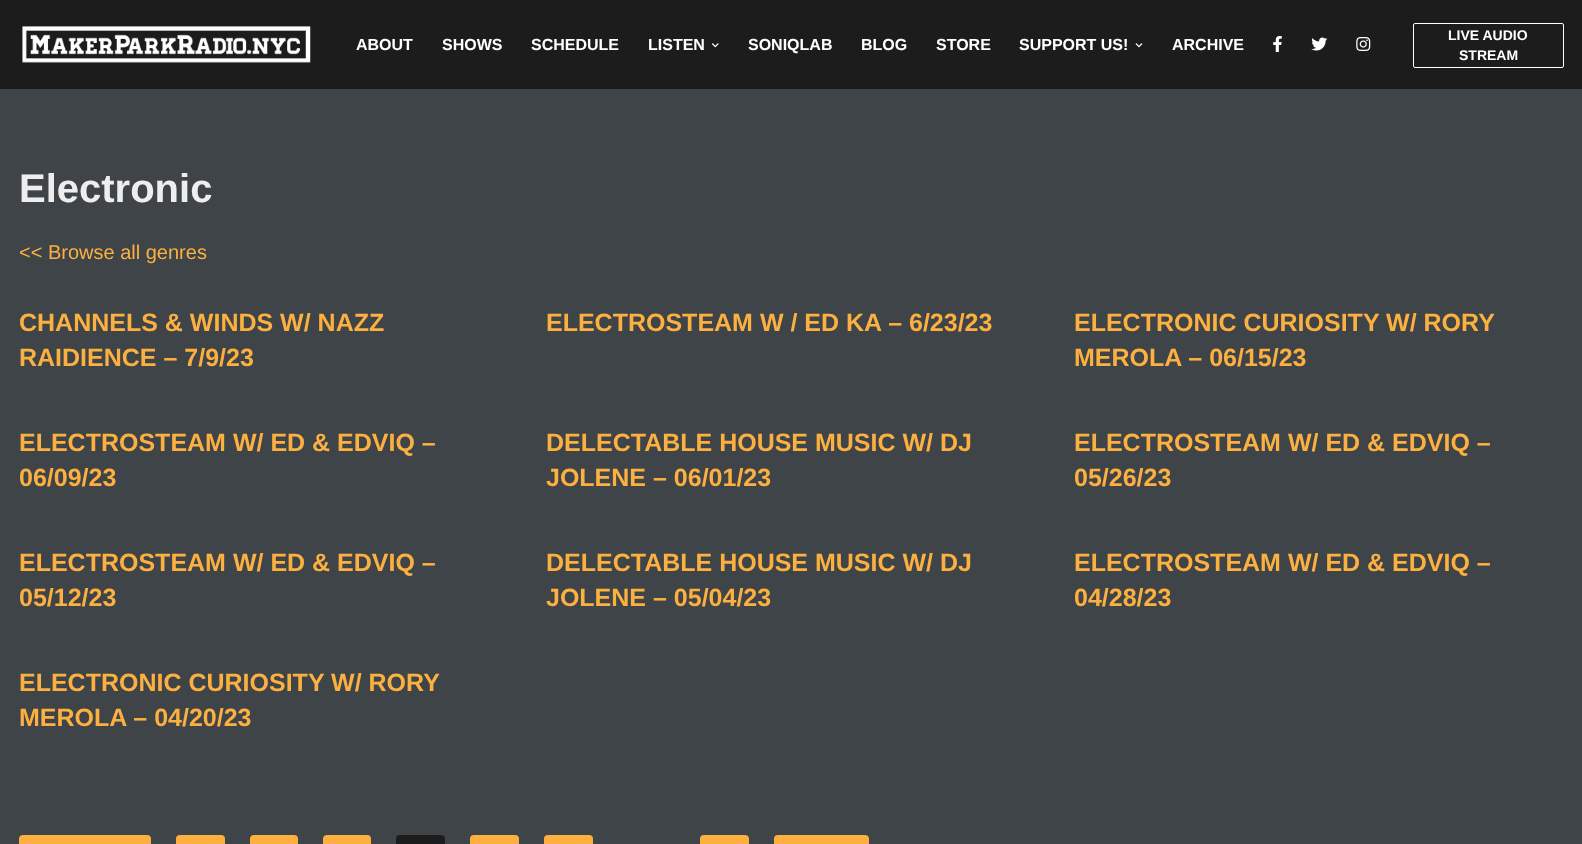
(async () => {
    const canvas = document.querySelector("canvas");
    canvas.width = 1582;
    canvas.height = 844;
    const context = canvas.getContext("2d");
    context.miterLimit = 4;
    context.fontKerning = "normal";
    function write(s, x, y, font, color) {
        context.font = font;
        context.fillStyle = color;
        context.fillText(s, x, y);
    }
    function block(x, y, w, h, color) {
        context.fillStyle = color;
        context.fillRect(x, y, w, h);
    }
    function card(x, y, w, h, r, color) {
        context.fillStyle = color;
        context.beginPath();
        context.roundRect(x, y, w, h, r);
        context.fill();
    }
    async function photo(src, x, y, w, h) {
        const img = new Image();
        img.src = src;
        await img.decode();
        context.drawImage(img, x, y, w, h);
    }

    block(0, 0, 1582, 844, "rgb(63, 68, 73)");
    block(0, 0, 1582, 89, "rgb(28, 28, 28)");
    await photo("media/1.png", 22, 26, 289, 37);
    write("ABOUT", 356, 50, "bold 16px Liberation Sans", "rgb(255, 255, 255)");
    write("SHOWS", 442, 50, "bold 16px Liberation Sans", "rgb(255, 255, 255)");
    write("SCHEDULE", 531, 50, "bold 16px Liberation Sans", "rgb(255, 255, 255)");
    write("LISTEN", 648, 50, "bold 16px Liberation Sans", "rgb(255, 255, 255)");
    await photo("media/2.png", 711, 43, 8, 5);
    write("SONIQLAB", 748, 50, "bold 16px Liberation Sans", "rgb(255, 255, 255)");
    write("BLOG", 861, 50, "bold 16px Liberation Sans", "rgb(255, 255, 255)");
    write("STORE", 936, 50, "bold 16px Liberation Sans", "rgb(255, 255, 255)");
    write("SUPPORT US!", 1019, 50, "bold 16px Liberation Sans", "rgb(255, 255, 255)");
    await photo("media/3.png", 1135, 43, 8, 5);
    write("ARCHIVE", 1172, 50, "bold 16px Liberation Sans", "rgb(255, 255, 255)");
    await photo("media/4.png", 1273, 36, 9, 16);
    await photo("media/5.png", 1311, 37, 17, 14);
    await photo("media/6.png", 1356, 37, 15, 14);
    context.beginPath();
    context.roundRect(1413.5, 23.5, 150, 44, 1.5);
    context.strokeStyle = "rgb(255, 255, 255)";
    context.stroke();
    write("LIVE AUDIO", 1448, 40, "bold 14px Liberation Sans", "rgb(255, 255, 255)");
    write("STREAM", 1459, 60, "bold 14px Liberation Sans", "rgb(255, 255, 255)");
    write("Electronic", 19, 202, "bold 40px Liberation Sans", "rgb(238, 238, 238)");
    write("<< Browse all genres", 19, 259, "20px Liberation Sans", "rgb(252, 176, 64)");
    write("CHANNELS & WINDS W/ NAZZ", 19, 331, "bold 25px Liberation Sans", "rgb(252, 176, 64)");
    write("RAIDIENCE – 7/9/23", 19, 366, "bold 25px Liberation Sans", "rgb(252, 176, 64)");
    write("ELECTROSTEAM W / ED KA – 6/23/23", 546, 331, "bold 25px Liberation Sans", "rgb(252, 176, 64)");
    write("ELECTRONIC CURIOSITY W/ RORY", 1074, 331, "bold 25px Liberation Sans", "rgb(252, 176, 64)");
    write("MEROLA – 06/15/23", 1074, 366, "bold 25px Liberation Sans", "rgb(252, 176, 64)");
    write("ELECTROSTEAM W/ ED & EDVIQ –", 19, 451, "bold 25px Liberation Sans", "rgb(252, 176, 64)");
    write("06/09/23", 19, 486, "bold 25px Liberation Sans", "rgb(252, 176, 64)");
    write("DELECTABLE HOUSE MUSIC W/ DJ", 546, 451, "bold 25px Liberation Sans", "rgb(252, 176, 64)");
    write("JOLENE – 06/01/23", 546, 486, "bold 25px Liberation Sans", "rgb(252, 176, 64)");
    write("ELECTROSTEAM W/ ED & EDVIQ –", 1074, 451, "bold 25px Liberation Sans", "rgb(252, 176, 64)");
    write("05/26/23", 1074, 486, "bold 25px Liberation Sans", "rgb(252, 176, 64)");
    write("ELECTROSTEAM W/ ED & EDVIQ –", 19, 571, "bold 25px Liberation Sans", "rgb(252, 176, 64)");
    write("05/12/23", 19, 606, "bold 25px Liberation Sans", "rgb(252, 176, 64)");
    write("DELECTABLE HOUSE MUSIC W/ DJ", 546, 571, "bold 25px Liberation Sans", "rgb(252, 176, 64)");
    write("JOLENE – 05/04/23", 546, 606, "bold 25px Liberation Sans", "rgb(252, 176, 64)");
    write("ELECTROSTEAM W/ ED & EDVIQ –", 1074, 571, "bold 25px Liberation Sans", "rgb(252, 176, 64)");
    write("04/28/23", 1074, 606, "bold 25px Liberation Sans", "rgb(252, 176, 64)");
    write("ELECTRONIC CURIOSITY W/ RORY", 19, 691, "bold 25px Liberation Sans", "rgb(252, 176, 64)");
    write("MEROLA – 04/20/23", 19, 726, "bold 25px Liberation Sans", "rgb(252, 176, 64)");
    card(19, 835, 132, 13, 4, "rgb(252, 176, 64)");
    card(176, 835, 49, 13, 4, "rgb(252, 176, 64)");
    card(250, 835, 48, 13, 4, "rgb(252, 176, 64)");
    card(323, 835, 48, 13, 4, "rgb(252, 176, 64)");
    card(396, 835, 49, 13, 4, "rgb(28, 28, 28)");
    card(470, 835, 49, 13, 4, "rgb(252, 176, 64)");
    card(544, 835, 49, 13, 4, "rgb(252, 176, 64)");
    card(700, 835, 49, 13, 4, "rgb(252, 176, 64)");
    card(774, 835, 95, 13, 4, "rgb(252, 176, 64)");
})();
